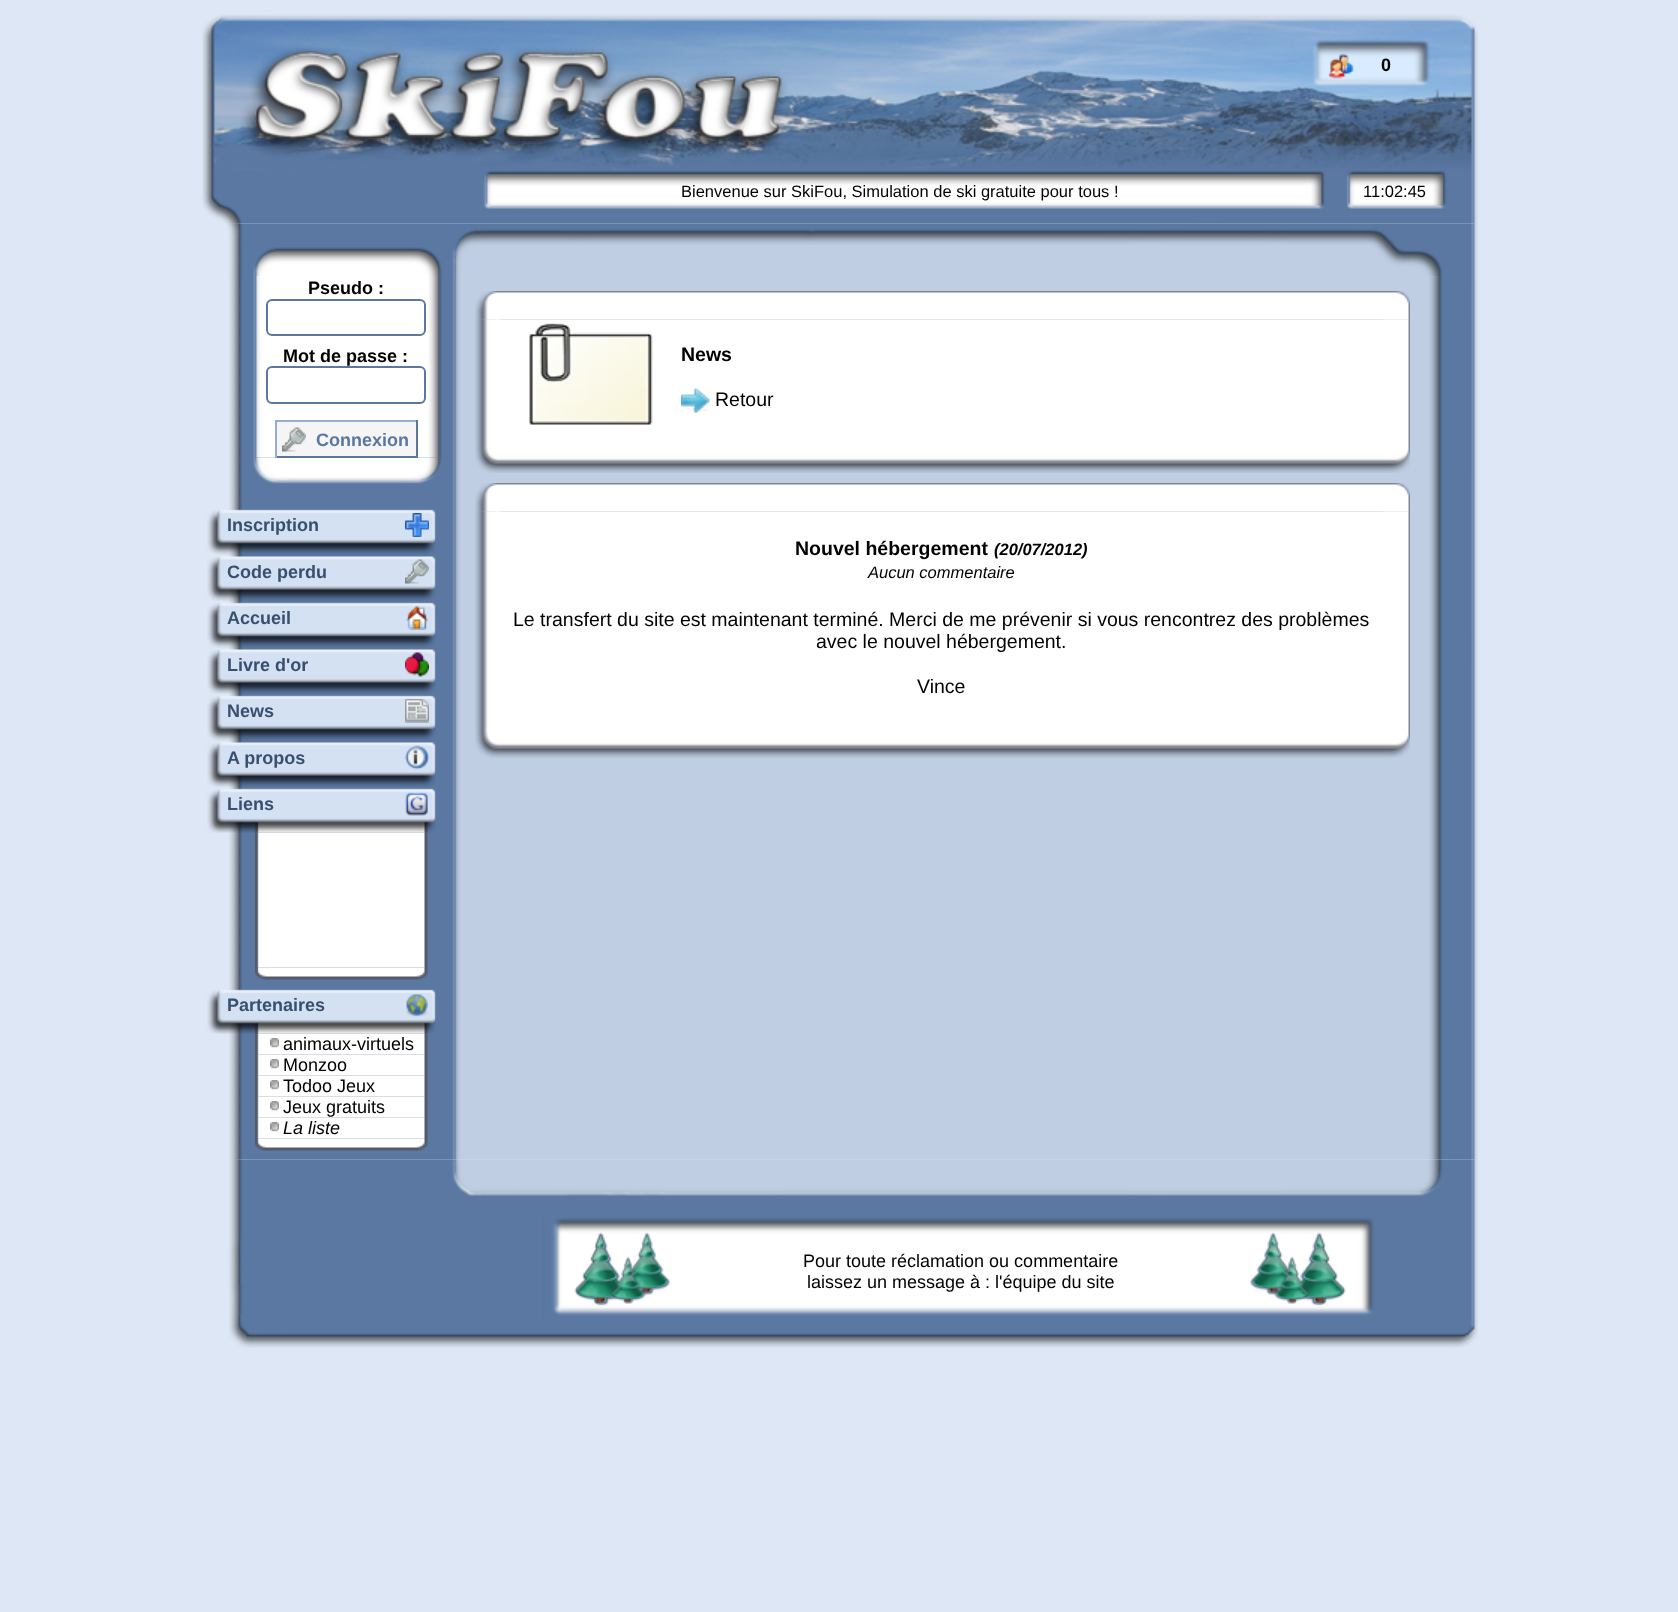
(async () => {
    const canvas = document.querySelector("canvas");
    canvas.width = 1678;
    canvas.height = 1612;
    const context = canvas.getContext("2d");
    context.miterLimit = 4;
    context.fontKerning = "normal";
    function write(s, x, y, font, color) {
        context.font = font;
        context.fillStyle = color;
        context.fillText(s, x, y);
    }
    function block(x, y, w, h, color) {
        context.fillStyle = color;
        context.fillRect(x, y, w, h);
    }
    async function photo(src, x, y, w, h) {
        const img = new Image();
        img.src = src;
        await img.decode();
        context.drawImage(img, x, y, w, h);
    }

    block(0, 0, 1678, 1612, "rgb(221, 231, 245)");
    await photo("media/1.png", 202, 14, 1276, 210);
    write("0", 1381, 71, "bold 18px Liberation Sans", "rgb(0, 0, 0)");
    write("Bienvenue sur SkiFou, Simulation de ski gratuite pour tous !", 681, 197, "16.5px Liberation Sans", "rgb(0, 0, 0)");
    write("11:02:45", 1363, 197, "16.5px Liberation Sans", "rgb(0, 0, 0)");
    await photo("media/2.png", 226, 223, 221, 53);
    await photo("media/3.png", 447, 223, 1031, 53);
    await photo("media/4.png", 229, 276, 1249, 884);
    await photo("media/5.png", 253, 276, 189, 182);
    write("Pseudo :", 308, 294, "bold 18px Liberation Sans", "rgb(0, 0, 0)");
    context.beginPath();
    context.roundRect(267, 300, 158, 35, 5);
    context.strokeStyle = "rgb(90, 120, 162)";
    context.lineWidth = 2;
    context.stroke();
    write("Mot de passe :", 283, 362, "bold 18px Liberation Sans", "rgb(0, 0, 0)");
    context.beginPath();
    context.roundRect(267, 367, 158, 36, 5);
    context.stroke();
    block(277, 422, 139, 34, "rgb(245, 245, 245)");
    block(275, 420, 142, 2, "rgb(148, 173, 208)");
    await photo("media/7.png", 253, 457, 189, 27);
    block(416, 420, 2, 38, "rgb(89, 119, 161)");
    block(275, 456, 142, 2, "rgb(89, 119, 161)");
    block(275, 420, 2, 38, "rgb(148, 173, 208)");
    await photo("media/6.png", 282, 427, 24, 25);
    write("Connexion", 316, 446, "bold 18px Liberation Sans", "rgb(89, 119, 161)");
    await photo("media/8.png", 207, 509, 229, 46);
    write("Inscription", 227, 531, "bold 18px Liberation Sans", "rgb(57, 79, 110)");
    await photo("media/9.png", 405, 513, 24, 24);
    await photo("media/10.png", 207, 556, 229, 45);
    write("Code perdu", 227, 578, "bold 18px Liberation Sans", "rgb(57, 79, 110)");
    await photo("media/11.png", 405, 559, 24, 25);
    await photo("media/12.png", 207, 602, 229, 46);
    write("Accueil", 227, 624, "bold 18px Liberation Sans", "rgb(57, 79, 110)");
    await photo("media/13.png", 406, 606, 22, 24);
    await photo("media/14.png", 207, 649, 229, 45);
    write("Livre d'or", 227, 671, "bold 18px Liberation Sans", "rgb(57, 79, 110)");
    await photo("media/15.png", 405, 652, 24, 25);
    await photo("media/16.png", 207, 695, 229, 46);
    write("News", 227, 717, "bold 18px Liberation Sans", "rgb(57, 79, 110)");
    await photo("media/17.png", 405, 699, 24, 24);
    await photo("media/18.png", 207, 742, 229, 45);
    write("A propos", 227, 764, "bold 18px Liberation Sans", "rgb(57, 79, 110)");
    await photo("media/19.png", 405, 745, 24, 25);
    await photo("media/20.png", 207, 788, 229, 45);
    write("Liens", 227, 810, "bold 18px Liberation Sans", "rgb(57, 79, 110)");
    await photo("media/21.png", 405, 792, 23, 24);
    await photo("media/22.png", 255, 832, 173, 136);
    await photo("media/23.png", 255, 967, 173, 13);
    await photo("media/24.png", 207, 989, 229, 45);
    write("Partenaires", 227, 1011, "bold 18px Liberation Sans", "rgb(57, 79, 110)");
    await photo("media/25.png", 406, 993, 22, 24);
    await photo("media/26.png", 255, 1033, 173, 22);
    await photo("media/27.png", 270, 1038, 9, 10);
    write("animaux-virtuels", 283, 1050, "18px Liberation Sans", "rgb(0, 0, 0)");
    await photo("media/28.png", 255, 1054, 173, 22);
    await photo("media/27.png", 270, 1059, 9, 10);
    write("Monzoo", 283, 1071, "18px Liberation Sans", "rgb(0, 0, 0)");
    await photo("media/29.png", 255, 1075, 173, 22);
    await photo("media/27.png", 270, 1080, 9, 10);
    write("Todoo Jeux", 283, 1092, "18px Liberation Sans", "rgb(0, 0, 0)");
    await photo("media/30.png", 255, 1096, 173, 22);
    await photo("media/27.png", 270, 1101, 9, 10);
    write("Jeux gratuits", 283, 1113, "18px Liberation Sans", "rgb(0, 0, 0)");
    await photo("media/31.png", 255, 1117, 173, 22);
    await photo("media/27.png", 270, 1122, 9, 10);
    write("La liste", 283, 1134, "italic 18px Liberation Sans", "rgb(0, 0, 0)");
    await photo("media/23.png", 255, 1138, 173, 13);
    await photo("media/32.png", 475, 291, 26, 29);
    await photo("media/33.png", 501, 291, 882, 29);
    await photo("media/34.png", 1383, 291, 27, 29);
    await photo("media/35.png", 475, 319, 26, 128);
    block(501, 320, 882, 127, "rgb(255, 255, 255)");
    await photo("media/36.png", 529, 323, 124, 102);
    write("News", 681, 361, "bold 19.5px Liberation Sans", "rgb(0, 0, 0)");
    await photo("media/37.png", 681, 388, 29, 25);
    write("Retour", 715, 406, "19.5px Liberation Sans", "rgb(0, 0, 0)");
    await photo("media/38.png", 1383, 319, 27, 128);
    await photo("media/39.png", 475, 447, 26, 26);
    await photo("media/40.png", 501, 447, 882, 26);
    await photo("media/41.png", 1383, 447, 27, 26);
    await photo("media/32.png", 475, 483, 26, 29);
    await photo("media/33.png", 501, 483, 882, 29);
    await photo("media/34.png", 1383, 483, 27, 29);
    await photo("media/42.png", 475, 511, 26, 221);
    block(501, 512, 882, 220, "rgb(255, 255, 255)");
    write("Nouvel hébergement", 795, 555, "bold 19.5px Liberation Sans", "rgb(0, 0, 0)");
    write("(20/07/2012)", 994, 555, "italic bold 16.5px Liberation Sans", "rgb(0, 0, 0)");
    write("Aucun commentaire", 868, 578, "italic 16.5px Liberation Sans", "rgb(0, 0, 0)");
    write("Le transfert du site est maintenant terminé. Merci de me prévenir si vous rencontrez des problèmes", 513, 626, "19.5px Liberation Sans", "rgb(0, 0, 0)");
    write("avec le nouvel hébergement.", 816, 648, "19.5px Liberation Sans", "rgb(0, 0, 0)");
    write("Vince", 917, 693, "19.5px Liberation Sans", "rgb(0, 0, 0)");
    await photo("media/43.png", 1383, 511, 27, 221);
    await photo("media/39.png", 475, 732, 26, 26);
    await photo("media/44.png", 501, 732, 882, 26);
    await photo("media/41.png", 1383, 732, 27, 26);
    await photo("media/45.png", 229, 1159, 1249, 189);
    await photo("media/46.png", 574, 1232, 97, 74);
    write("Pour toute réclamation ou commentaire", 803, 1267, "18px Liberation Sans", "rgb(0, 0, 0)");
    write("laissez un message à : l'équipe du site", 807, 1288, "18px Liberation Sans", "rgb(0, 0, 0)");
    await photo("media/47.png", 1249, 1232, 97, 74);
})();
